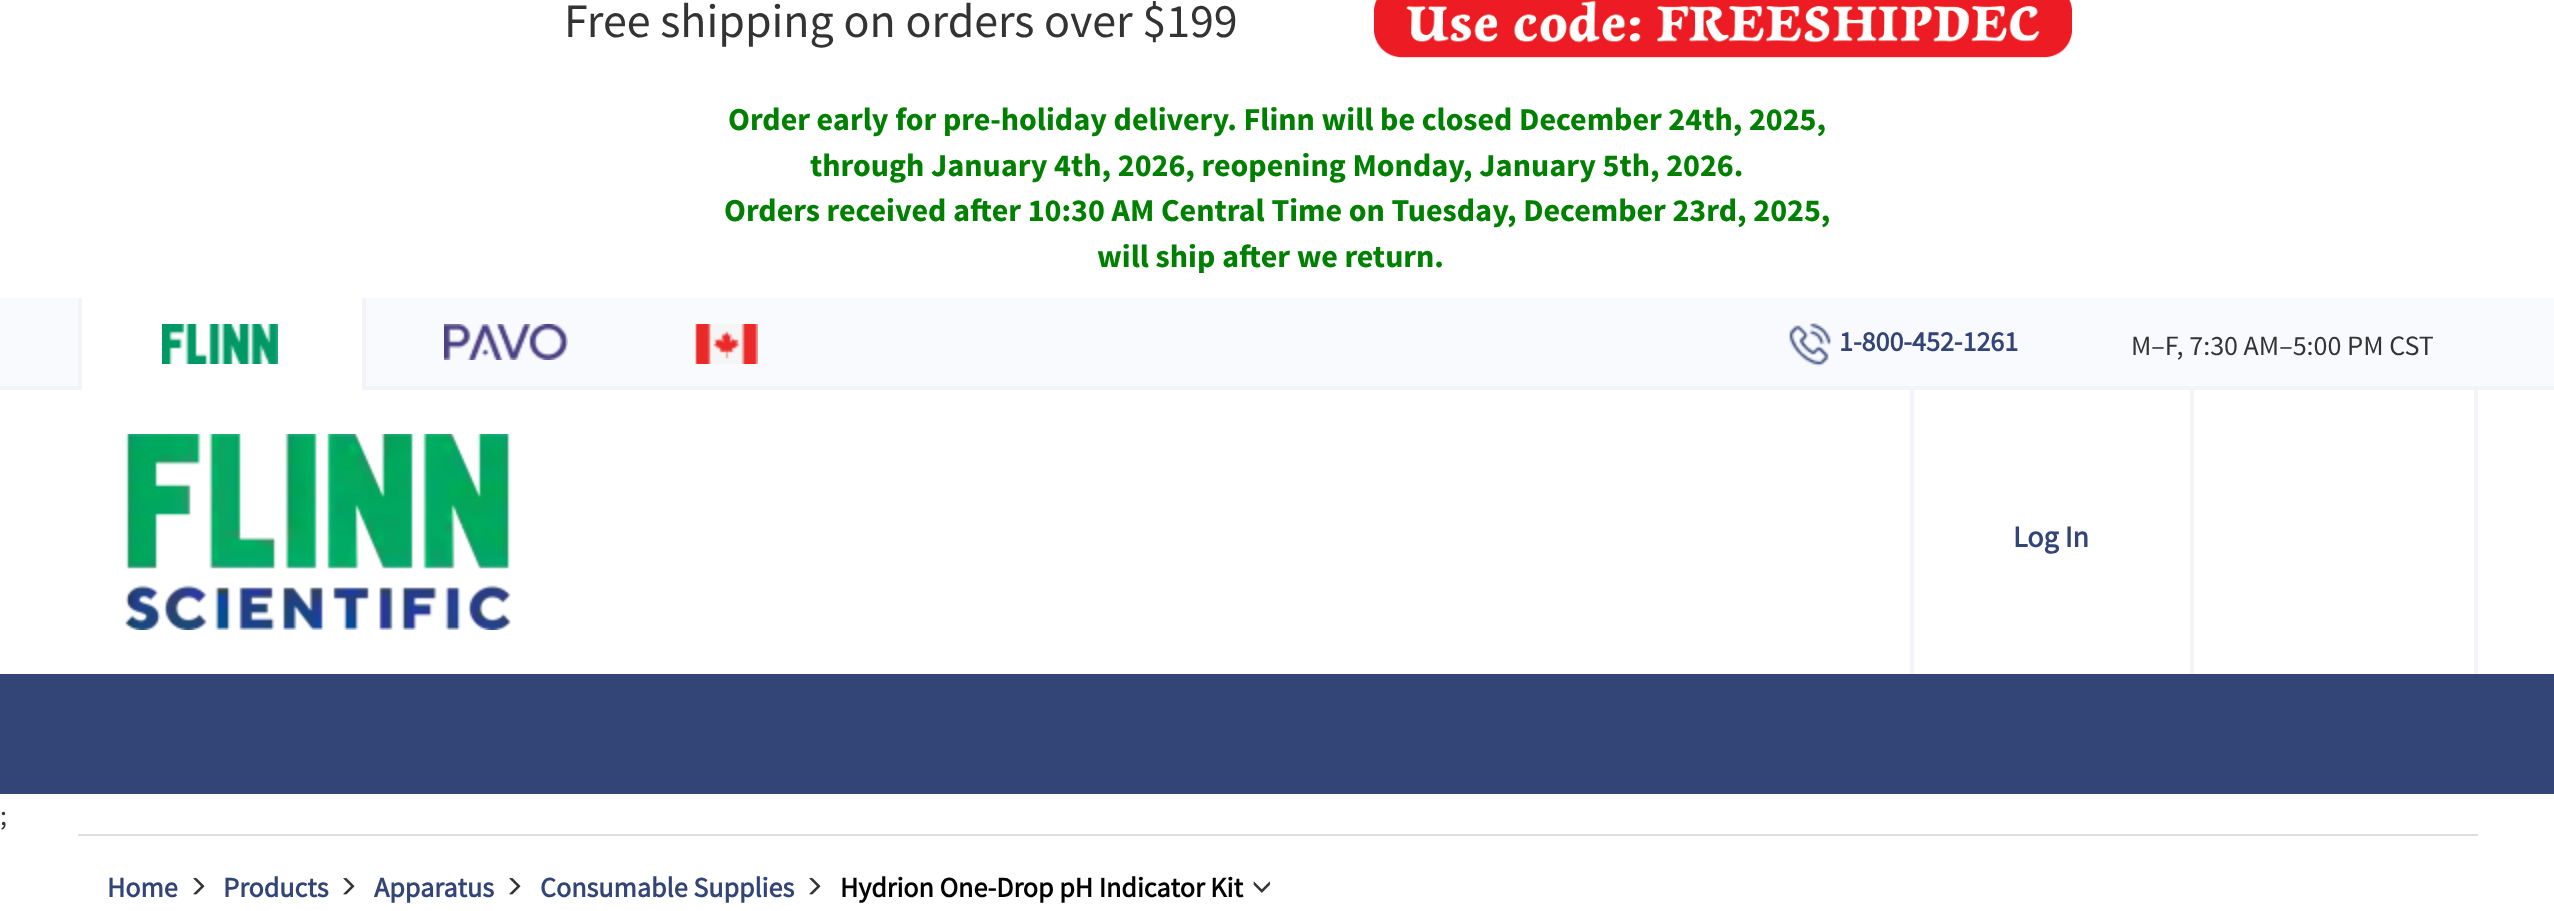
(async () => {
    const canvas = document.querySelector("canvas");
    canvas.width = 2554;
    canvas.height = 911;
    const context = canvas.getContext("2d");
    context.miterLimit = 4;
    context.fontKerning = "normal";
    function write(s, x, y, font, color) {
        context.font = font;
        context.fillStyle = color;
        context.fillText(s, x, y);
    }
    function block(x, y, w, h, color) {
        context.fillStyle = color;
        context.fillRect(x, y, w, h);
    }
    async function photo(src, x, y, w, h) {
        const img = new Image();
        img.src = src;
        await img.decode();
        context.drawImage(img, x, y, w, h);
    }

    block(0, 0, 2554, 911, "rgb(255, 255, 255)");
    write("Free shipping on orders over $199", 564, 37, "48px Source Sans Pro", "rgb(51, 51, 51)");
    await photo("media/1.png", 1374, 0, 698, 58);
    write("Order early for pre-holiday delivery. Flinn will be closed December 24th, 2025,", 728, 130, "bold 32px Source Sans Pro", "rgb(0, 128, 0)");
    write("through January 4th, 2026, reopening Monday, January 5th, 2026.", 810, 176, "bold 32px Source Sans Pro", "rgb(0, 128, 0)");
    write("Orders received after 10:30 AM Central Time on Tuesday, December 23rd, 2025,", 724, 221, "bold 32px Source Sans Pro", "rgb(0, 128, 0)");
    write("will ship after we return.", 1097, 267, "bold 32px Source Sans Pro", "rgb(0, 128, 0)");
    block(0, 298, 2554, 88, "rgb(249, 250, 253)");
    block(0, 386, 2554, 4, "rgb(242, 244, 247)");
    block(82, 298, 280, 92, "rgb(255, 255, 255)");
    block(362, 298, 4, 92, "rgb(242, 244, 247)");
    block(78, 298, 4, 92, "rgb(242, 244, 247)");
    await photo("media/2.png", 162, 324, 116, 40);
    await photo("media/3.png", 444, 324, 124, 36);
    await photo("media/4.png", 695, 324, 63, 40);
    await photo("media/5.png", 1789, 323, 43, 44);
    write("1-800-452-1261", 1839, 351, "bold 28px 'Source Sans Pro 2'", "rgb(51, 68, 119)");
    write("M–F, 7:30 AM–5:00 PM CST", 2131, 355, "28px Source Sans Pro", "rgb(51, 51, 51)");
    await photo("media/6.png", 125, 434, 386, 196);
    block(2190, 390, 4, 284, "rgb(242, 244, 247)");
    block(1910, 390, 4, 284, "rgb(242, 244, 247)");
    write("Log In", 2013, 547, "bold 30px 'Source Sans Pro 2'", "rgb(51, 68, 119)");
    block(2474, 390, 4, 284, "rgb(242, 244, 247)");
    block(0, 674, 2554, 120, "rgb(51, 68, 119)");
    write(";", 0, 825, "28px Source Sans Pro", "rgb(51, 51, 51)");
    block(78, 834, 2400, 2, "rgb(222, 222, 222)");
    write("Home", 107, 897, "bold 28px 'Source Sans Pro 2'", "rgb(51, 68, 119)");
    await photo("media/7.png", 193, 878, 12, 17);
    write("Products", 223, 897, "bold 28px 'Source Sans Pro 2'", "rgb(51, 68, 119)");
    await photo("media/7.png", 343, 878, 12, 17);
    write("Apparatus", 374, 897, "bold 28px 'Source Sans Pro 2'", "rgb(51, 68, 119)");
    await photo("media/7.png", 509, 878, 12, 17);
    write("Consumable Supplies", 540, 897, "bold 28px 'Source Sans Pro 2'", "rgb(51, 68, 119)");
    await photo("media/7.png", 809, 878, 12, 17);
    write("Hydrion One-Drop pH Indicator Kit", 840, 897, "bold 28px 'Source Sans Pro 2'", "rgb(0, 0, 0)");
    await photo("media/8.png", 1253, 881, 17, 12);
})();
